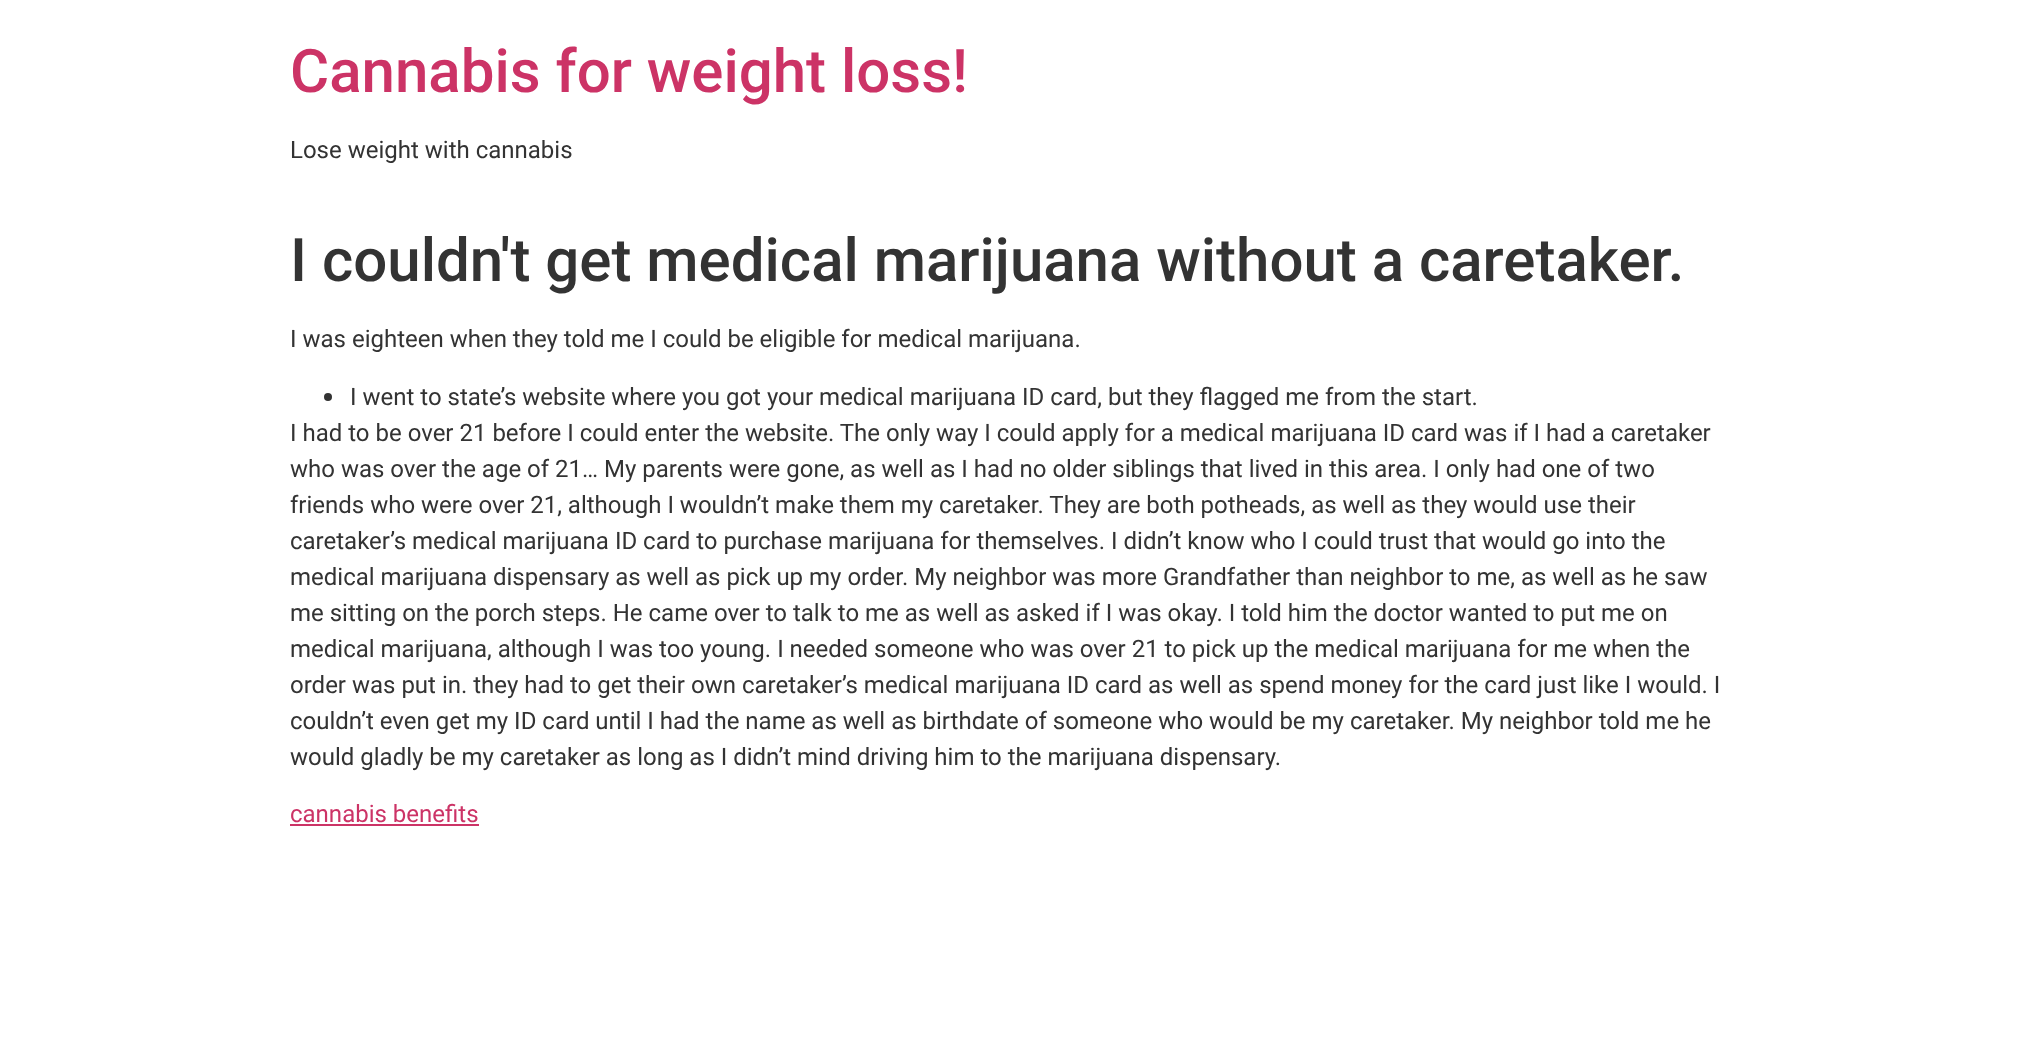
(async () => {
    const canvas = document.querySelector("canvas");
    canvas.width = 2019;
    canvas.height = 1059;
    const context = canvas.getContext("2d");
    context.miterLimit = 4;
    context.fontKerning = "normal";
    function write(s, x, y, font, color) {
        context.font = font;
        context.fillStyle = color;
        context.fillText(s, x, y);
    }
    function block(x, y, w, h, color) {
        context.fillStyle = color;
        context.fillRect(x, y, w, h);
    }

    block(0, 0, 2019, 1059, "rgb(255, 255, 255)");
    write("Cannabis for weight loss!", 290, 92, "500 60px Roboto", "rgb(204, 51, 102)");
    write("Lose weight with cannabis", 290, 158, "24px Roboto", "rgb(51, 51, 51)");
    write("I couldn't get medical marijuana without a caretaker.", 290, 281, "500 60px Roboto", "rgb(51, 51, 51)");
    write("I was eighteen when they told me I could be eligible for medical marijuana.", 290, 347, "24px Roboto", "rgb(51, 51, 51)");
    context.beginPath();
    context.arc(328, 397, 4, 0, Math.PI * 2);
    context.fill();
    write("I went to state’s website where you got your medical marijuana ID card, but they flagged me from the start.", 350, 405, "24px Roboto", "rgb(51, 51, 51)");
    write("I had to be over 21 before I could enter the website. The only way I could apply for a medical marijuana ID card was if I had a caretaker", 290, 441, "24px Roboto", "rgb(51, 51, 51)");
    write("who was over the age of 21… My parents were gone, as well as I had no older siblings that lived in this area. I only had one of two", 290, 477, "24px Roboto", "rgb(51, 51, 51)");
    write("friends who were over 21, although I wouldn’t make them my caretaker. They are both potheads, as well as they would use their", 290, 513, "24px Roboto", "rgb(51, 51, 51)");
    write("caretaker’s medical marijuana ID card to purchase marijuana for themselves. I didn’t know who I could trust that would go into the", 290, 549, "24px Roboto", "rgb(51, 51, 51)");
    write("medical marijuana dispensary as well as pick up my order. My neighbor was more Grandfather than neighbor to me, as well as he saw", 290, 585, "24px Roboto", "rgb(51, 51, 51)");
    write("me sitting on the porch steps. He came over to talk to me as well as asked if I was okay. I told him the doctor wanted to put me on", 290, 621, "24px Roboto", "rgb(51, 51, 51)");
    write("medical marijuana, although I was too young. I needed someone who was over 21 to pick up the medical marijuana for me when the", 290, 657, "24px Roboto", "rgb(51, 51, 51)");
    write("order was put in. they had to get their own caretaker’s medical marijuana ID card as well as spend money for the card just like I would. I", 290, 693, "24px Roboto", "rgb(51, 51, 51)");
    write("couldn’t even get my ID card until I had the name as well as birthdate of someone who would be my caretaker. My neighbor told me he", 290, 729, "24px Roboto", "rgb(51, 51, 51)");
    write("would gladly be my caretaker as long as I didn’t mind driving him to the marijuana dispensary.", 290, 765, "24px Roboto", "rgb(51, 51, 51)");
    write("cannabis benefits", 290, 822, "24px Roboto", "rgb(204, 51, 102)");
    block(290, 824, 189, 2, "rgb(204, 51, 102)");
})();
